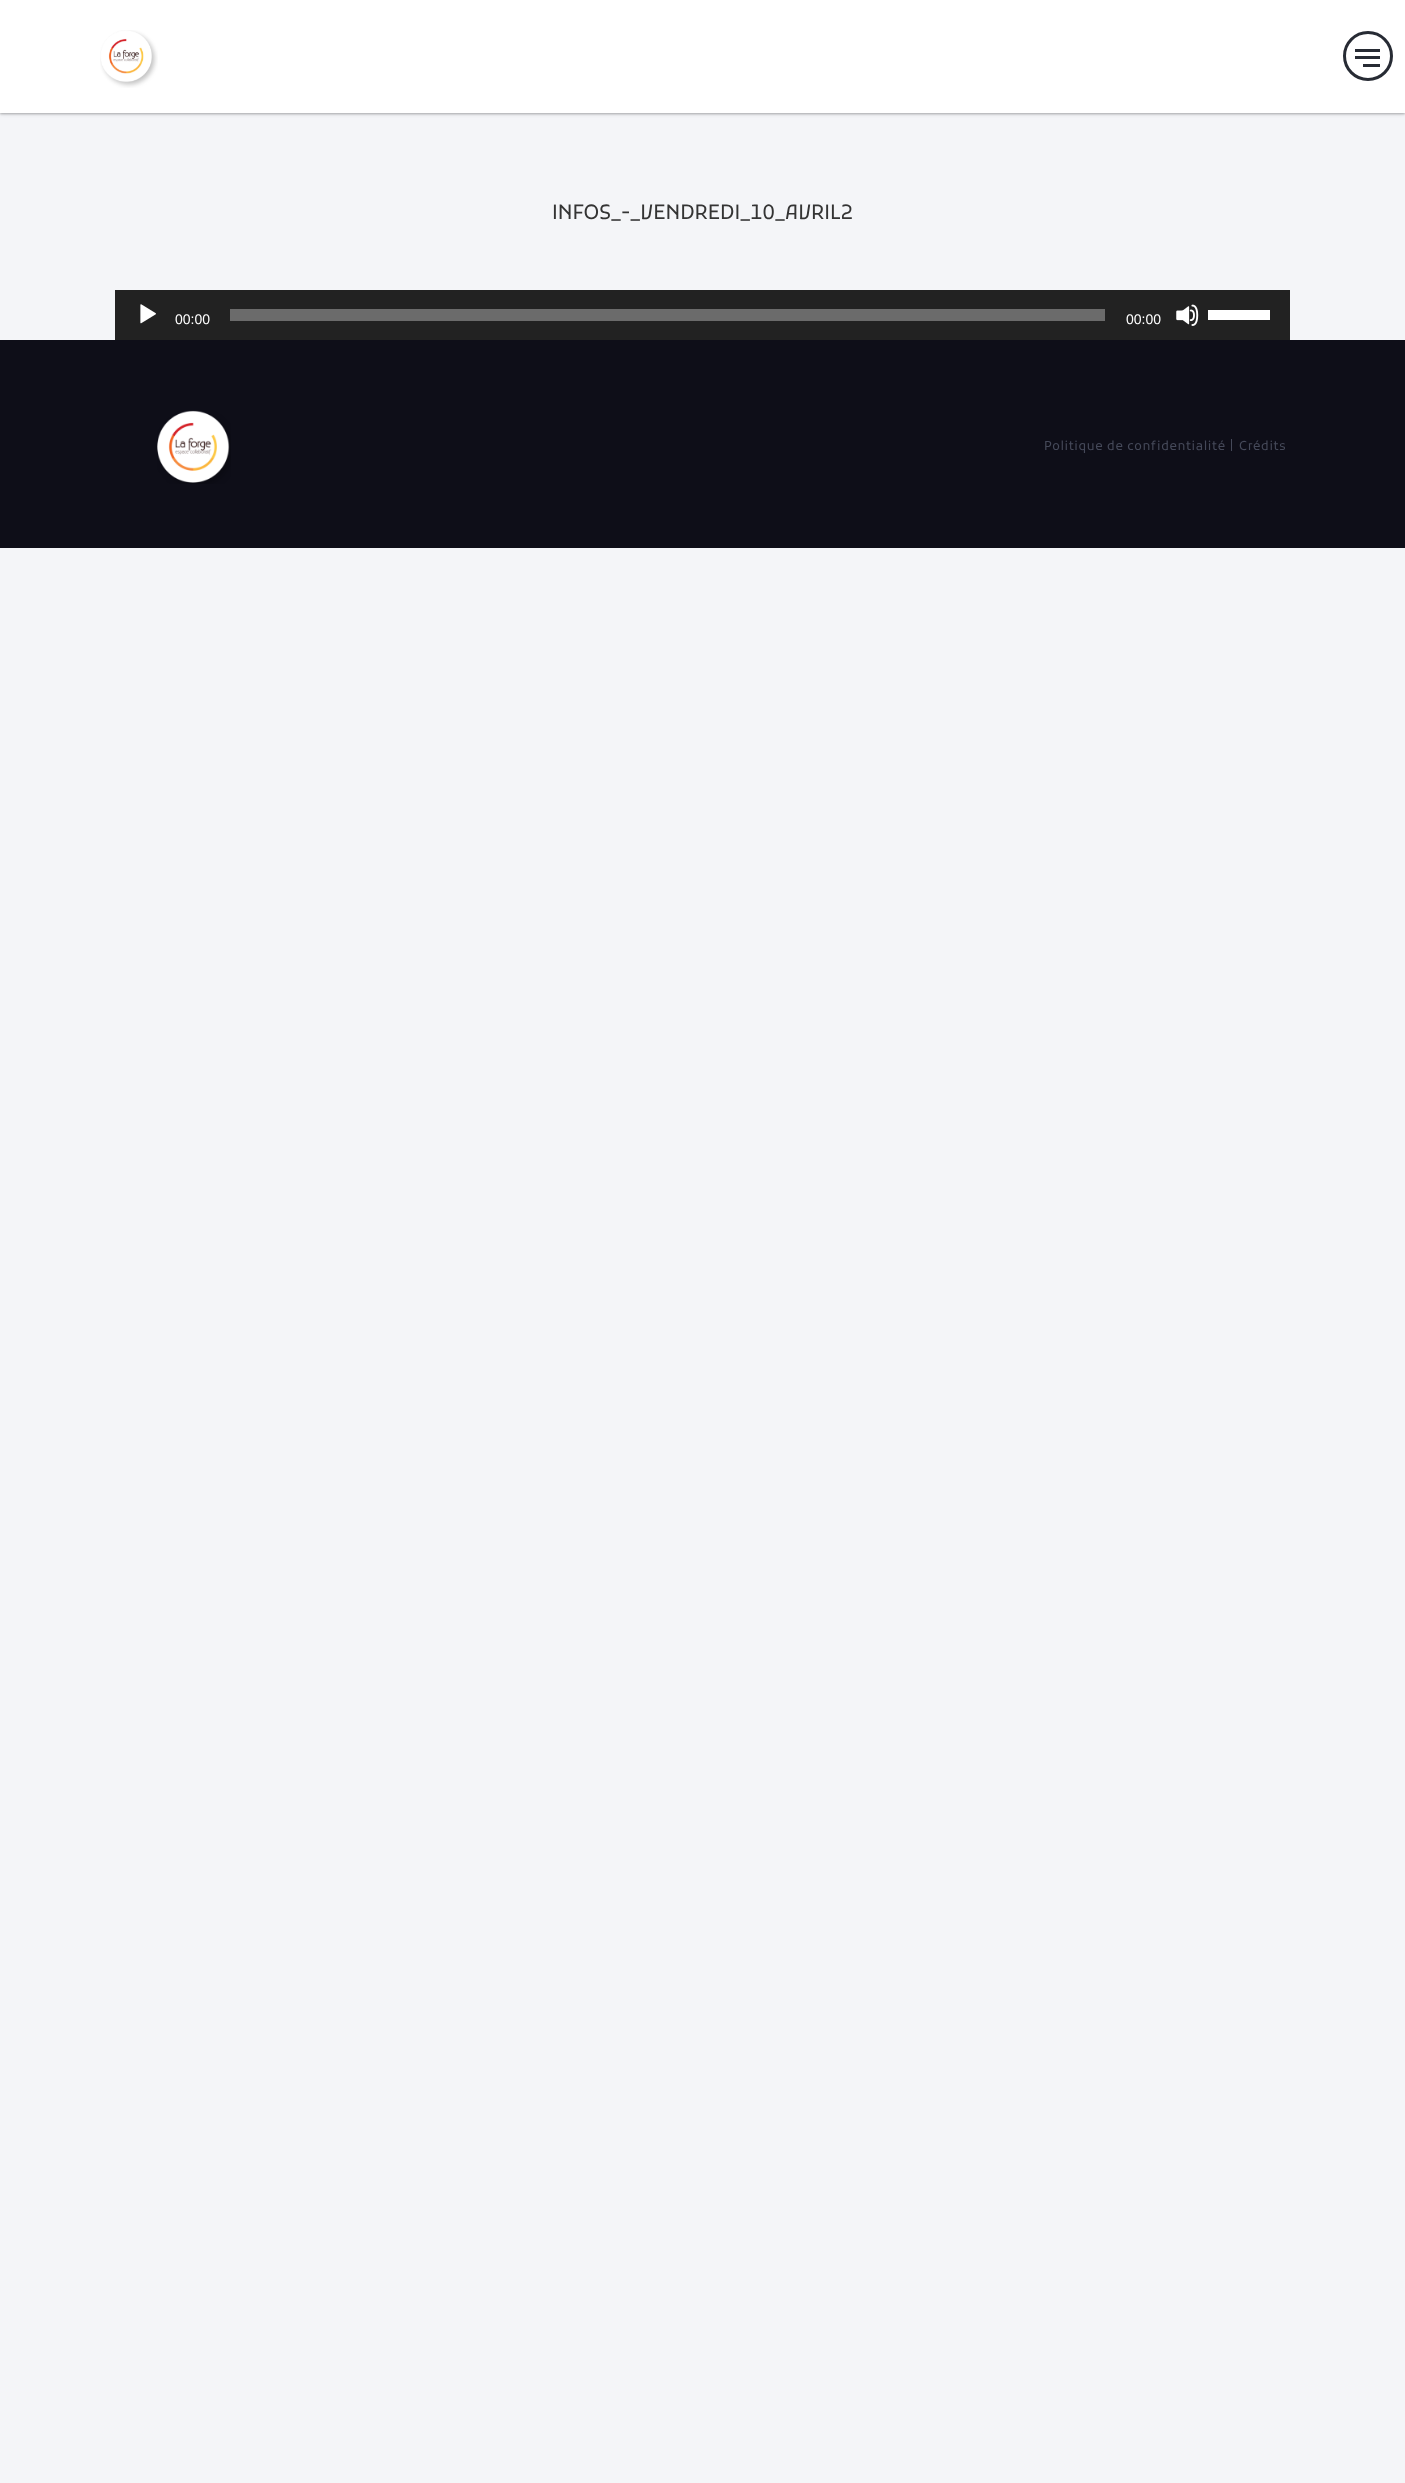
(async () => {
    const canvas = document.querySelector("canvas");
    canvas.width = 1405;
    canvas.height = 2483;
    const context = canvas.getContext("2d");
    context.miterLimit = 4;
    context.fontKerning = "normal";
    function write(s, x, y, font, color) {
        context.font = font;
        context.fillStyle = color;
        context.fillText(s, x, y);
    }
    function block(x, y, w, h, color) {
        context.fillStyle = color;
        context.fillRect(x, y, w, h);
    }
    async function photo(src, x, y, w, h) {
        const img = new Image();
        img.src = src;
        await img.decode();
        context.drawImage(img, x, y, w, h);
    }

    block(0, 0, 1405, 2483, "rgb(244, 245, 248)");
    context.fillStyle = "rgba(0, 0, 0, 0.24)";
    context.filter = "blur(1px)";
    context.beginPath();
    context.rect(0, 1, 1405, 113);
    context.fill();
    context.filter = "none";
    context.fillStyle = "rgba(0, 0, 0, 0.12)";
    context.filter = "blur(2px)";
    context.beginPath();
    context.rect(0, 1, 1405, 113);
    context.fill();
    context.filter = "none";
    block(0, 0, 1405, 113, "rgb(255, 255, 255)");
    await photo("media/1.png", 100, 30, 58, 58);
    context.beginPath();
    context.arc(1368, 56, 23.5, 0, Math.PI * 2);
    context.strokeStyle = "rgb(39, 43, 52)";
    context.lineWidth = 3;
    context.stroke();
    block(1355, 49, 25, 3, "rgb(39, 43, 52)");
    block(1355, 56, 25, 3, "rgb(39, 43, 52)");
    block(1363, 64, 17, 3, "rgb(39, 43, 52)");
    write("INFOS_-_VENDREDI_10_AVRIL2", 552, 219, "20px Kufam", "rgb(52, 52, 52)");
    block(115, 290, 1175, 50, "rgb(34, 34, 34)");
    await photo("media/2.png", 140, 304, 16, 20);
    write("00:00", 175, 324, "14px Liberation Sans", "rgb(255, 255, 255)");
    block(230, 309, 875, 12, "rgb(107, 107, 107)");
    write("00:00", 1126, 324, "14px Liberation Sans", "rgb(255, 255, 255)");
    await photo("media/3.png", 1176, 304, 23, 22);
    block(1208, 310, 62, 10, "rgb(255, 255, 255)");
    block(0, 340, 1405, 208, "rgb(14, 14, 24)");
    await photo("media/4.png", 157, 410, 74, 74);
    context.letterSpacing = "0.6px";
    write("Politique de confidentialité", 1044, 450, "12.5px Kufam", "rgb(69, 73, 89)");
    block(1231, 439, 1, 12, "rgb(69, 73, 89)");
    write("Crédits", 1239, 450, "12.5px Kufam", "rgb(69, 73, 89)");
})();
